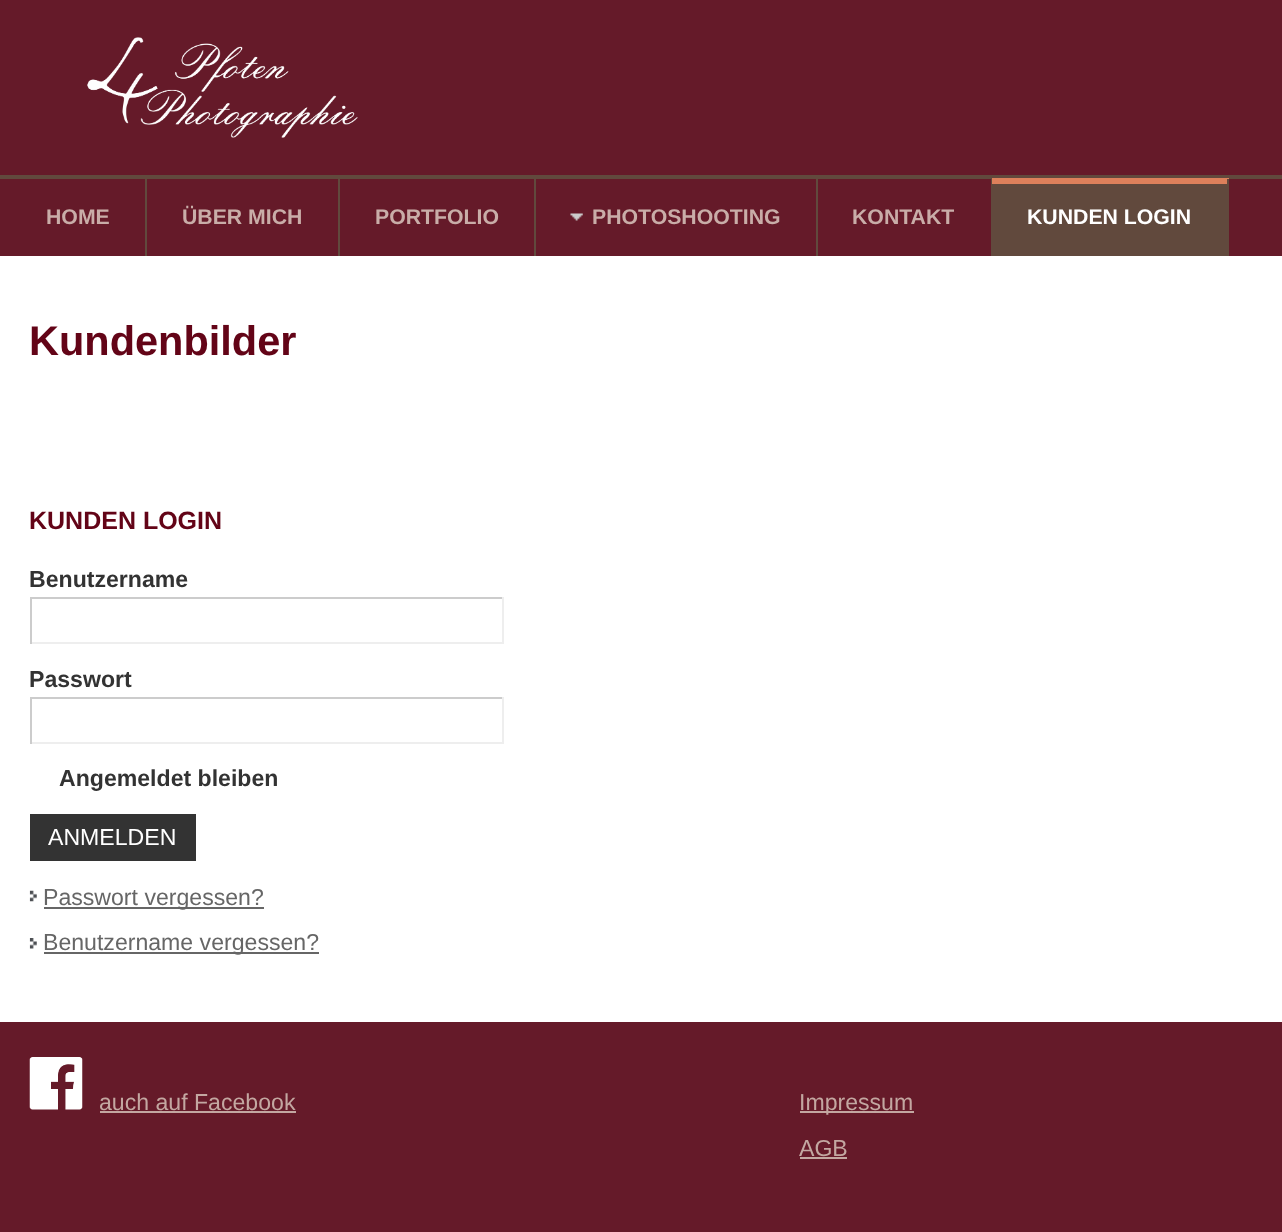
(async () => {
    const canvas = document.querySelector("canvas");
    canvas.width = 1282;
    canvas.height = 1232;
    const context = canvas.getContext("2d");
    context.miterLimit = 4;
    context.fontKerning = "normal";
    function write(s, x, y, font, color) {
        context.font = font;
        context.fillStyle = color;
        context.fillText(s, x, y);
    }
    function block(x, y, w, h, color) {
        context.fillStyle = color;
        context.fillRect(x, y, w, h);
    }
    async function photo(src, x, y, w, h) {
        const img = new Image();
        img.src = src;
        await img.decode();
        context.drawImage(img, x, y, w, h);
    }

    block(0, 0, 1282, 1232, "rgb(255, 255, 255)");
    block(0, 0, 1282, 175, "rgb(101, 26, 41)");
    block(0, 175, 1282, 4, "rgb(97, 73, 61)");
    await photo("media/1.png", 87, 37, 271, 101);
    block(0, 179, 1282, 77, "rgb(101, 26, 41)");
    block(145, 179, 2, 77, "rgb(97, 73, 61)");
    write("HOME", 46, 224, "bold 21.25px Liberation Sans", "rgb(201, 173, 168)");
    block(338, 179, 2, 77, "rgb(97, 73, 61)");
    write("ÜBER MICH", 182, 224, "bold 21.25px Liberation Sans", "rgb(201, 173, 168)");
    block(534, 179, 2, 77, "rgb(97, 73, 61)");
    write("PORTFOLIO", 375, 224, "bold 21.25px Liberation Sans", "rgb(201, 173, 168)");
    block(816, 179, 2, 77, "rgb(97, 73, 61)");
    await photo("media/2.png", 570, 213, 13, 8);
    write("PHOTOSHOOTING", 592, 224, "bold 21.25px Liberation Sans", "rgb(201, 173, 168)");
    block(991, 179, 1, 77, "rgb(97, 73, 61)");
    write("KONTAKT", 852, 224, "bold 21.25px Liberation Sans", "rgb(201, 173, 168)");
    block(992, 184, 235, 72, "rgb(97, 73, 61)");
    block(992, 178, 237, 6, "rgb(221, 128, 91)");
    block(1227, 179, 2, 77, "rgb(97, 73, 61)");
    write("KUNDEN LOGIN", 1027, 224, "bold 21.25px Liberation Sans", "rgb(255, 255, 255)");
    write("Kundenbilder", 29, 355, "bold 41.5px Liberation Sans", "rgb(99, 4, 23)");
    write("KUNDEN LOGIN", 29, 529, "bold 25px Liberation Sans", "rgb(99, 4, 23)");
    write("Benutzername", 29, 587, "bold 23.1px Liberation Sans", "rgb(51, 51, 51)");
    block(30, 597, 474, 2, "rgb(204, 204, 204)");
    block(502, 597, 2, 47, "rgb(238, 238, 238)");
    block(30, 642, 474, 2, "rgb(238, 238, 238)");
    block(30, 597, 2, 47, "rgb(204, 204, 204)");
    write("Passwort", 29, 687, "bold 23.1px Liberation Sans", "rgb(51, 51, 51)");
    block(30, 697, 474, 2, "rgb(204, 204, 204)");
    block(502, 697, 2, 47, "rgb(238, 238, 238)");
    block(30, 742, 474, 2, "rgb(238, 238, 238)");
    block(30, 697, 2, 47, "rgb(204, 204, 204)");
    write("Angemeldet bleiben", 59, 786, "bold 23.1px Liberation Sans", "rgb(51, 51, 51)");
    block(30, 814, 166, 47, "rgb(51, 51, 51)");
    write("ANMELDEN", 48, 845, "23.1px Liberation Sans", "rgb(255, 255, 255)");
    await photo("media/3.png", 29, 890, 8, 12);
    block(44, 907, 220, 2, "rgb(102, 102, 102)");
    write("Passwort vergessen?", 43, 905, "23.1px Liberation Sans", "rgb(102, 102, 102)");
    await photo("media/4.png", 29, 938, 8, 11);
    block(44, 952, 275, 2, "rgb(102, 102, 102)");
    write("Benutzername vergessen?", 43, 950, "23.1px Liberation Sans", "rgb(102, 102, 102)");
    block(0, 1022, 1282, 210, "rgb(101, 26, 41)");
    await photo("media/5.png", 29, 1057, 54, 53);
    write("auch auf Facebook", 99, 1110, "23.1px Liberation Sans", "rgb(195, 167, 161)");
    block(100, 1111, 196, 2, "rgb(195, 167, 161)");
    block(800, 1111, 114, 2, "rgb(195, 167, 161)");
    write("Impressum", 799, 1110, "23.1px Liberation Sans", "rgb(195, 167, 161)");
    write("AGB", 799, 1156, "23.1px Liberation Sans", "rgb(195, 167, 161)");
    block(800, 1157, 47, 2, "rgb(195, 167, 161)");
})();
